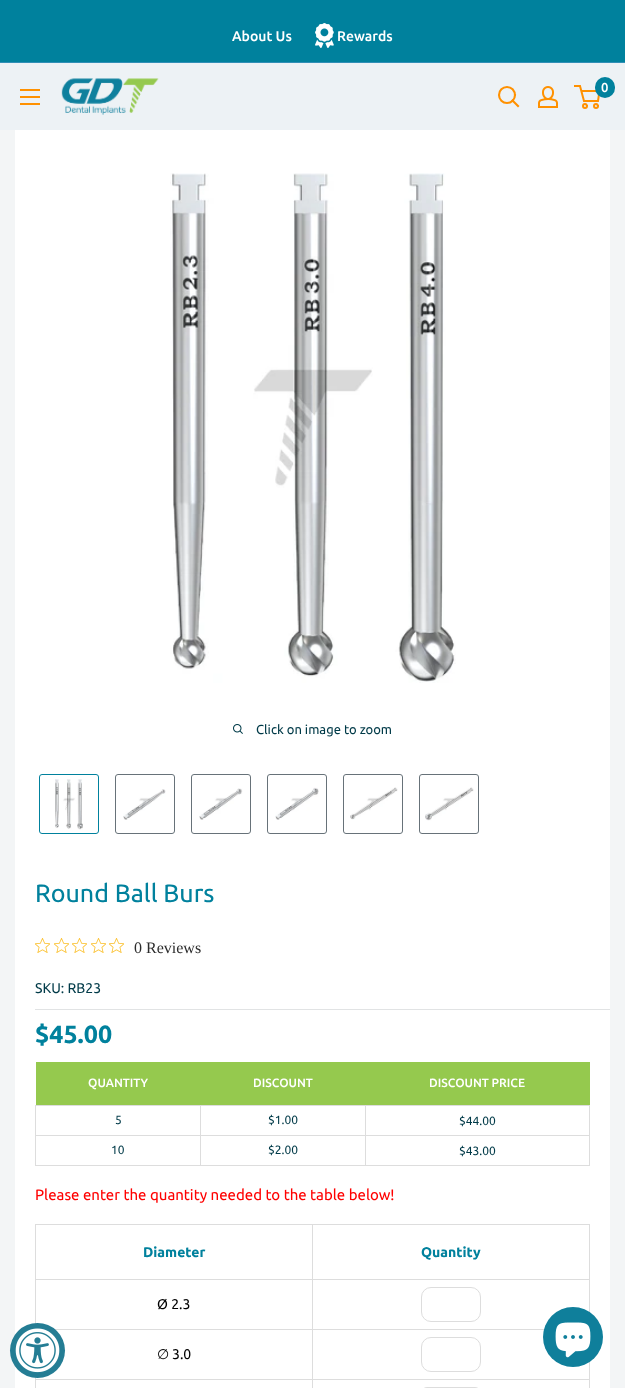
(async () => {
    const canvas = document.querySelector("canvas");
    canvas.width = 625;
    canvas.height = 1388;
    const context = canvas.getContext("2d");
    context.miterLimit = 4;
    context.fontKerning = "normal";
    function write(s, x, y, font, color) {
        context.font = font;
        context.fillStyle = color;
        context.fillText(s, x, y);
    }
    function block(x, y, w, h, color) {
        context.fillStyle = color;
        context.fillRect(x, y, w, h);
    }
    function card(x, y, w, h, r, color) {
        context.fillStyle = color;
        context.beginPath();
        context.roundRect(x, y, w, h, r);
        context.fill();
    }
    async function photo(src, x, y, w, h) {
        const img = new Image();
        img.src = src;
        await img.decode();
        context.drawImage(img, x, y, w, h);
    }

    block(0, 0, 625, 1388, "rgb(243, 245, 246)");
    block(0, 0, 625, 62, "rgb(0, 129, 157)");
    block(0, 62, 625, 1, "rgb(49, 143, 182)");
    write("About Us", 232, 41, "500 14px Ubuntu", "rgb(255, 255, 255)");
    await photo("media/1.png", 315, 23, 19, 25);
    write("Rewards", 337, 41, "500 14px Ubuntu", "rgb(255, 255, 255)");
    block(0, 63, 625, 67, "rgb(237, 242, 245)");
    await photo("media/2.png", 61, 78, 98, 37);
    context.beginPath();
    context.moveTo(518, 106);
    context.lineTo(512.5, 100.5);
    context.strokeStyle = "rgb(255, 145, 0)";
    context.lineWidth = 2.1;
    context.lineCap = "square";
    context.stroke();
    context.beginPath();
    context.arc(507, 95, 8, 0, Math.PI * 2);
    context.stroke();
    await photo("media/3.png", 538, 86, 20, 22);
    context.beginPath();
    context.arc(585, 106, 2, 0, Math.PI * 2);
    context.lineWidth = 2;
    context.stroke();
    context.beginPath();
    context.arc(596, 106, 2, 0, Math.PI * 2);
    context.stroke();
    context.beginPath();
    context.moveTo(581.5, 91);
    context.lineTo(599.5, 91);
    context.lineTo(598, 101);
    context.lineTo(584, 101);
    context.lineTo(580, 86);
    context.lineTo(574, 86);
    context.lineCap = "butt";
    context.stroke();
    card(595, 77, 20, 21, 10, "rgb(0, 129, 157)");
    write("0", 601, 92, "500 13px Ubuntu", "rgb(255, 255, 255)");
    await photo("media/4.png", 20, 89, 20, 16);
    block(15, 130, 595, 1258, "rgb(255, 255, 255)");
    await photo("media/5.png", 170, 173, 286, 510);
    await photo("media/6.png", 233, 724, 10, 10);
    write("Click on image to zoom", 256, 734, "13px Ubuntu", "rgb(0, 58, 72)");
    context.beginPath();
    context.roundRect(39.5, 774.5, 59, 59, 2.5);
    context.strokeStyle = "rgb(0, 129, 157)";
    context.lineWidth = 1;
    context.stroke();
    await photo("media/7.png", 55, 779, 28, 51);
    context.beginPath();
    context.roundRect(115.5, 774.5, 59, 59, 2.5);
    context.strokeStyle = "rgb(103, 114, 121)";
    context.stroke();
    await photo("media/8.png", 123, 789, 43, 31);
    context.beginPath();
    context.roundRect(191.5, 774.5, 59, 59, 2.5);
    context.stroke();
    await photo("media/9.png", 199, 788, 44, 32);
    context.beginPath();
    context.roundRect(267.5, 774.5, 59, 59, 2.5);
    context.stroke();
    await photo("media/10.png", 275, 787, 44, 33);
    context.beginPath();
    context.roundRect(343.5, 774.5, 59, 59, 2.5);
    context.stroke();
    await photo("media/11.png", 350, 787, 48, 33);
    context.beginPath();
    context.roundRect(419.5, 774.5, 59, 59, 2.5);
    context.stroke();
    await photo("media/12.png", 425, 787, 49, 34);
    write("Round Ball Burs", 35, 902, "25px Ubuntu", "rgb(0, 129, 157)");
    await photo("media/13.png", 35, 938, 15, 15);
    await photo("media/13.png", 54, 938, 15, 15);
    await photo("media/13.png", 72, 938, 15, 15);
    await photo("media/13.png", 91, 938, 15, 15);
    await photo("media/13.png", 109, 938, 15, 15);
    write("0 Reviews", 134, 953, "16px Liberation Serif", "rgb(44, 44, 44)");
    write("SKU: RB23", 35, 993, "14px Ubuntu", "rgb(0, 58, 72)");
    block(35, 1009, 575, 1, "rgb(225, 227, 228)");
    write("$45.00", 35, 1043, "bold 25px Ubuntu", "rgb(0, 129, 157)");
    block(36, 1062, 554, 43, "rgb(149, 201, 78)");
    write("QUANTITY", 88, 1087, "500 12px Ubuntu", "rgb(255, 255, 255)");
    write("DISCOUNT", 253, 1087, "500 12px Ubuntu", "rgb(255, 255, 255)");
    write("DISCOUNT PRICE", 429, 1087, "500 12px Ubuntu", "rgb(255, 255, 255)");
    block(365, 1105, 225, 1, "rgb(221, 221, 221)");
    block(365, 1135, 225, 1, "rgb(221, 221, 221)");
    block(589, 1135, 1, 31, "rgb(221, 221, 221)");
    block(365, 1165, 225, 1, "rgb(221, 221, 221)");
    block(365, 1135, 1, 31, "rgb(221, 221, 221)");
    block(200, 1135, 166, 1, "rgb(221, 221, 221)");
    block(365, 1105, 1, 31, "rgb(221, 221, 221)");
    block(200, 1105, 166, 1, "rgb(221, 221, 221)");
    block(200, 1165, 166, 1, "rgb(221, 221, 221)");
    block(200, 1135, 1, 31, "rgb(221, 221, 221)");
    block(35, 1135, 166, 1, "rgb(221, 221, 221)");
    block(200, 1105, 1, 31, "rgb(221, 221, 221)");
    block(35, 1105, 166, 1, "rgb(221, 221, 221)");
    block(35, 1165, 166, 1, "rgb(221, 221, 221)");
    block(35, 1135, 1, 31, "rgb(221, 221, 221)");
    block(35, 1105, 1, 31, "rgb(221, 221, 221)");
    write("5", 115, 1124, "12px Ubuntu", "rgb(0, 58, 72)");
    write("$1.00", 268, 1124, "12px Ubuntu", "rgb(0, 58, 72)");
    block(589, 1105, 1, 31, "rgb(221, 221, 221)");
    write("$44.00", 459, 1125, "12px Ubuntu", "rgb(0, 58, 72)");
    write("10", 111, 1154, "12px Ubuntu", "rgb(0, 58, 72)");
    write("$2.00", 268, 1154, "12px Ubuntu", "rgb(0, 58, 72)");
    write("$43.00", 459, 1155, "12px Ubuntu", "rgb(0, 58, 72)");
    write("Please enter the quantity needed to the table below!", 35, 1200, "15px Ubuntu", "rgb(255, 0, 0)");
    block(312, 1224, 278, 1, "rgb(221, 221, 221)");
    block(312, 1279, 278, 1, "rgb(221, 221, 221)");
    block(312, 1329, 233, 1, "rgb(221, 221, 221)");
    block(312, 1379, 278, 1, "rgb(221, 221, 221)");
    block(312, 1379, 1, 9, "rgb(221, 221, 221)");
    block(35, 1379, 278, 1, "rgb(221, 221, 221)");
    block(312, 1329, 1, 51, "rgb(221, 221, 221)");
    block(54, 1329, 259, 1, "rgb(221, 221, 221)");
    block(312, 1279, 1, 51, "rgb(221, 221, 221)");
    block(35, 1279, 278, 1, "rgb(221, 221, 221)");
    block(312, 1224, 1, 56, "rgb(221, 221, 221)");
    block(35, 1224, 278, 1, "rgb(221, 221, 221)");
    block(35, 1279, 1, 51, "rgb(221, 221, 221)");
    block(35, 1224, 1, 56, "rgb(221, 221, 221)");
    write("Diameter", 143, 1257, "bold 14px Ubuntu", "rgb(0, 129, 157)");
    block(589, 1279, 1, 34, "rgb(221, 221, 221)");
    block(589, 1224, 1, 56, "rgb(221, 221, 221)");
    write("Quantity", 421, 1257, "bold 14px Ubuntu", "rgb(0, 129, 157)");
    write("Ø 2.3", 157, 1309, "14px Ubuntu", "rgb(0, 0, 0)");
    context.beginPath();
    context.roundRect(421.5, 1287.5, 59, 34, 9.5);
    context.strokeStyle = "rgb(221, 221, 221)";
    context.stroke();
    write("∅", 157, 1359, "14px DejaVu Sans", "rgb(0, 0, 0)");
    write("3.0", 172, 1359, "14px Ubuntu", "rgb(0, 0, 0)");
    context.beginPath();
    context.roundRect(421.5, 1337.5, 59, 34, 9.5);
    context.stroke();
    block(35, 1377, 1, 11, "rgb(221, 221, 221)");
    block(589, 1361, 1, 27, "rgb(221, 221, 221)");
    context.beginPath();
    context.roundRect(421.5, 1387.5, 59, 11, 9.5);
    context.stroke();
    context.fillStyle = "rgb(15, 127, 155)";
    context.beginPath();
    context.arc(573, 1337, 30, 0, Math.PI * 2);
    context.fill();
    await photo("media/14.png", 555, 1322, 36, 36);
    context.fillStyle = "rgb(36, 125, 148)";
    context.beginPath();
    context.arc(37.5, 1350.5, 27.5, 0, Math.PI * 2);
    context.fill();
    await photo("media/15.png", 15, 1328, 45, 45);
})();
